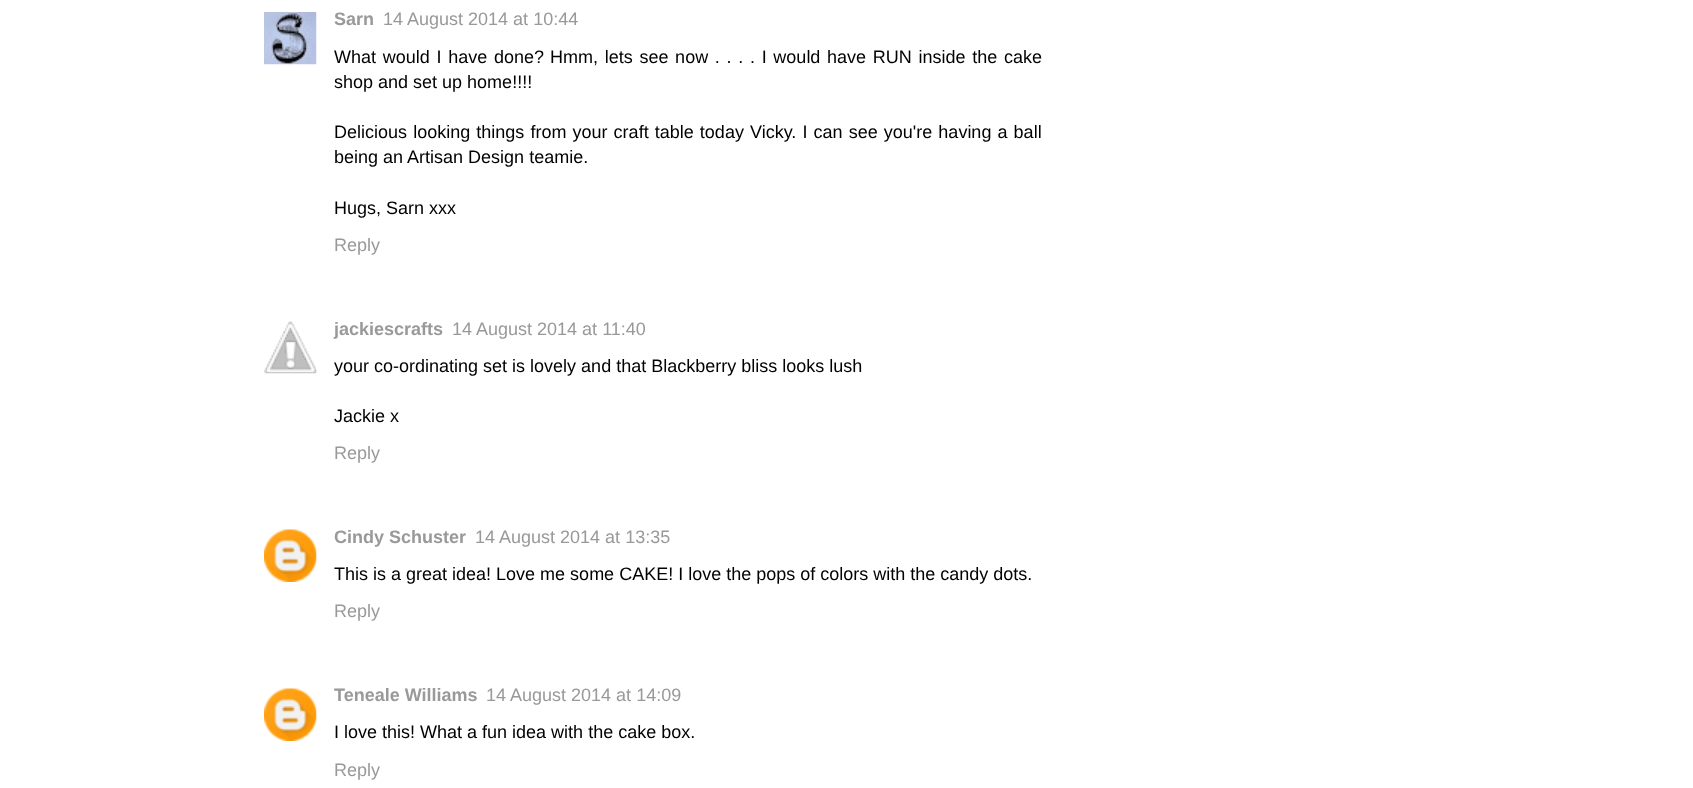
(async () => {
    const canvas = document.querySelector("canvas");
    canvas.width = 1693;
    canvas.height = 788;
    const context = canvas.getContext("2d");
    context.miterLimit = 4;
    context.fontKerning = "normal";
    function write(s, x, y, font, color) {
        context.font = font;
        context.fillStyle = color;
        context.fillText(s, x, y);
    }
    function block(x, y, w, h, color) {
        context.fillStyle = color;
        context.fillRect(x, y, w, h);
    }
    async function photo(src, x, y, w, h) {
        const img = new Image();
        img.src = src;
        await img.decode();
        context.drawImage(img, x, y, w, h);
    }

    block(0, 0, 1693, 788, "rgb(255, 255, 255)");
    await photo("media/1.png", 264, 12, 53, 53);
    write("Sarn", 334, 25, "bold 18px Liberation Sans", "rgb(153, 153, 153)");
    write("14 August 2014 at 10:44", 383, 25, "18px Liberation Sans", "rgb(153, 153, 153)");
    context.wordSpacing = "1.7px";
    write("What would I have done?", 334, 63, "18px Liberation Sans", "rgb(0, 0, 0)");
    write("Hmm, lets see now . . . . I would have RUN inside the cake", 550, 63, "18px Liberation Sans", "rgb(0, 0, 0)");
    context.wordSpacing = "0px";
    write("shop and set up home!!!!", 334, 88, "18px Liberation Sans", "rgb(0, 0, 0)");
    context.wordSpacing = "1.1px";
    write("Delicious looking things from your craft table today Vicky. I can see you're having a ball", 334, 138, "18px Liberation Sans", "rgb(0, 0, 0)");
    context.wordSpacing = "0px";
    write("being an Artisan Design teamie.", 334, 163, "18px Liberation Sans", "rgb(0, 0, 0)");
    write("Hugs, Sarn xxx", 334, 214, "18px Liberation Sans", "rgb(0, 0, 0)");
    write("Reply", 334, 251, "18px Liberation Sans", "rgb(153, 153, 153)");
    await photo("media/2.png", 264, 321, 53, 53);
    write("jackiescrafts", 334, 335, "bold 18px Liberation Sans", "rgb(153, 153, 153)");
    write("14 August 2014 at 11:40", 452, 335, "18px Liberation Sans", "rgb(153, 153, 153)");
    write("your co-ordinating set is lovely and that Blackberry bliss looks lush", 334, 372, "18px Liberation Sans", "rgb(0, 0, 0)");
    write("Jackie x", 334, 422, "18px Liberation Sans", "rgb(0, 0, 0)");
    write("Reply", 334, 459, "18px Liberation Sans", "rgb(153, 153, 153)");
    await photo("media/3.png", 264, 529, 53, 53);
    write("Cindy Schuster", 334, 543, "bold 18px Liberation Sans", "rgb(153, 153, 153)");
    write("14 August 2014 at 13:35", 475, 543, "18px Liberation Sans", "rgb(153, 153, 153)");
    write("This is a great idea! Love me some CAKE! I love the pops of colors with the candy dots.", 334, 580, "18px Liberation Sans", "rgb(0, 0, 0)");
    write("Reply", 334, 617, "18px Liberation Sans", "rgb(153, 153, 153)");
    await photo("media/3.png", 264, 688, 53, 53);
    write("Teneale Williams", 334, 701, "bold 18px Liberation Sans", "rgb(153, 153, 153)");
    write("14 August 2014 at 14:09", 486, 701, "18px Liberation Sans", "rgb(153, 153, 153)");
    write("I love this! What a fun idea with the cake box.", 334, 738, "18px Liberation Sans", "rgb(0, 0, 0)");
    write("Reply", 334, 776, "18px Liberation Sans", "rgb(153, 153, 153)");
})();
